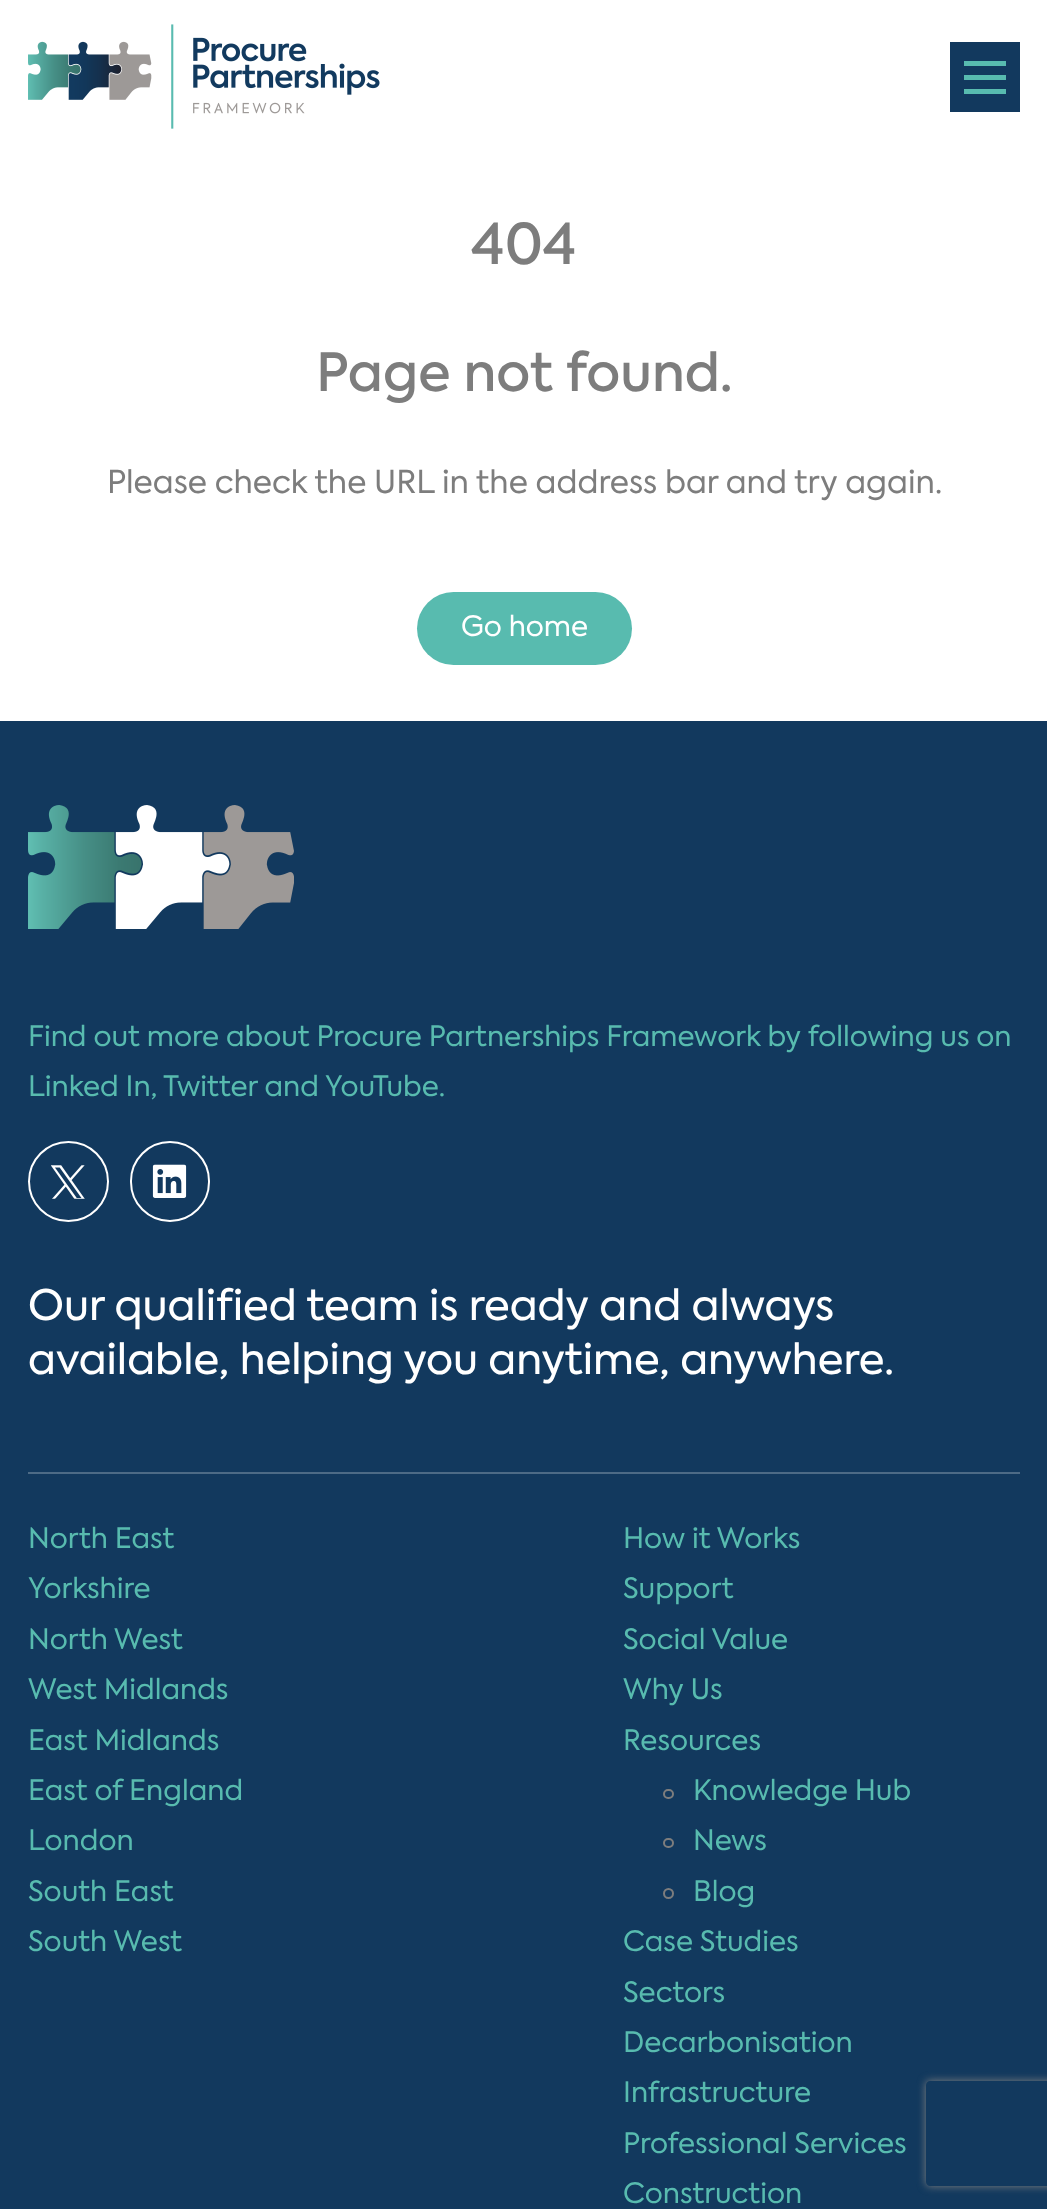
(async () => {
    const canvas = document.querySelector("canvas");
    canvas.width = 1047;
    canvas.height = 2209;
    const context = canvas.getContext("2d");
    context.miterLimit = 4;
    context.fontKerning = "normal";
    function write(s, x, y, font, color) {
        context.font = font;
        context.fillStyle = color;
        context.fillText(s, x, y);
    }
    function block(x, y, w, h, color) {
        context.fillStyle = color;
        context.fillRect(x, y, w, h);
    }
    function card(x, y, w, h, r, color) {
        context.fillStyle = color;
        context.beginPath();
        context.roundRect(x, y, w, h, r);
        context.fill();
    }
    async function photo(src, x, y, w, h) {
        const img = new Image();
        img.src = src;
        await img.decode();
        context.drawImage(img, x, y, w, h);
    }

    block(0, 0, 1047, 2209, "rgb(255, 255, 255)");
    await photo("media/1.png", 28, 24, 352, 105);
    block(950, 42, 70, 70, "rgb(18, 57, 94)");
    block(964, 61, 42, 5, "rgb(88, 187, 175)");
    block(964, 75, 42, 5, "rgb(88, 187, 175)");
    block(964, 89, 42, 5, "rgb(88, 187, 175)");
    write("404", 471, 264, "500 56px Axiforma", "rgb(125, 125, 125)");
    write("Page not found.", 316, 391, "500 52.5px Axiforma", "rgb(125, 125, 125)");
    write("Please check the URL in the address bar and try again.", 107, 493, "31.5px Axiforma", "rgb(125, 125, 125)");
    card(417, 592, 215, 73, 36.5, "rgb(88, 187, 175)");
    write("Go home", 461, 636, "28px Axiforma", "rgb(255, 255, 255)");
    block(0, 721, 1047, 1488, "rgb(18, 57, 94)");
    await photo("media/2.png", 28, 805, 266, 124);
    write("Find out more about Procure Partnerships Framework by following us on", 28, 1046, "28px Axiforma", "rgb(88, 187, 175)");
    write("Linked In, Twitter and YouTube.", 28, 1096, "28px Axiforma", "rgb(88, 187, 175)");
    context.beginPath();
    context.arc(68.5, 1181.5, 39.5, 0, Math.PI * 2);
    context.strokeStyle = "rgb(255, 255, 255)";
    context.lineWidth = 2;
    context.stroke();
    await photo("media/3.png", 51, 1165, 34, 34);
    context.beginPath();
    context.roundRect(131, 1142, 78, 79, 39);
    context.stroke();
    await photo("media/4.png", 152, 1164, 35, 34);
    block(28, 1472, 992, 2, "rgb(77, 107, 134)");
    write("Our qualified team is ready and always", 28, 1320, "42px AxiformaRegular", "rgb(255, 255, 255)");
    write("available, helping you anytime, anywhere.", 28, 1374, "42px AxiformaRegular", "rgb(255, 255, 255)");
    write("North East", 28, 1548, "28px Axiforma", "rgb(88, 187, 175)");
    write("Yorkshire", 28, 1598, "28px Axiforma", "rgb(88, 187, 175)");
    write("North West", 28, 1649, "28px Axiforma", "rgb(88, 187, 175)");
    write("West Midlands", 28, 1699, "28px Axiforma", "rgb(88, 187, 175)");
    write("East Midlands", 28, 1750, "28px Axiforma", "rgb(88, 187, 175)");
    write("East of England", 28, 1800, "28px Axiforma", "rgb(88, 187, 175)");
    write("London", 28, 1850, "28px Axiforma", "rgb(88, 187, 175)");
    write("South East", 28, 1901, "28px Axiforma", "rgb(88, 187, 175)");
    write("South West", 28, 1951, "28px Axiforma", "rgb(88, 187, 175)");
    write("How it Works", 623, 1548, "28px Axiforma", "rgb(88, 187, 175)");
    write("Support", 623, 1598, "28px Axiforma", "rgb(88, 187, 175)");
    write("Social Value", 623, 1649, "28px Axiforma", "rgb(88, 187, 175)");
    write("Why Us", 623, 1699, "28px Axiforma", "rgb(88, 187, 175)");
    write("Resources", 623, 1750, "28px Axiforma", "rgb(88, 187, 175)");
    context.beginPath();
    context.roundRect(664, 1790, 9, 8, 4);
    context.strokeStyle = "rgb(125, 125, 125)";
    context.stroke();
    write("Knowledge Hub", 693, 1800, "28px Axiforma", "rgb(88, 187, 175)");
    context.beginPath();
    context.roundRect(664, 1839, 9, 8, 4);
    context.stroke();
    write("News", 693, 1850, "28px Axiforma", "rgb(88, 187, 175)");
    context.beginPath();
    context.arc(668.5, 1893.5, 4.5, 0, Math.PI * 2);
    context.stroke();
    write("Blog", 693, 1901, "28px Axiforma", "rgb(88, 187, 175)");
    write("Case Studies", 623, 1951, "28px Axiforma", "rgb(88, 187, 175)");
    write("Sectors", 623, 2002, "28px Axiforma", "rgb(88, 187, 175)");
    write("Decarbonisation", 623, 2052, "28px Axiforma", "rgb(88, 187, 175)");
    write("Infrastructure", 623, 2102, "28px Axiforma", "rgb(88, 187, 175)");
    write("Professional Services", 623, 2153, "28px Axiforma", "rgb(88, 187, 175)");
    write("Construction", 623, 2203, "28px Axiforma", "rgb(88, 187, 175)");
    context.save();
    context.beginPath();
    context.moveTo(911, 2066);
    context.lineTo(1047, 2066);
    context.lineTo(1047, 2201);
    context.lineTo(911, 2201);
    context.closePath();
    context.moveTo(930, 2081);
    context.lineTo(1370, 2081);
    context.bezierCurveTo(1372, 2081, 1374, 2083, 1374, 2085);
    context.lineTo(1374, 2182);
    context.bezierCurveTo(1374, 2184, 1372, 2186, 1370, 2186);
    context.lineTo(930, 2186);
    context.bezierCurveTo(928, 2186, 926, 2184, 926, 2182);
    context.lineTo(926, 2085);
    context.bezierCurveTo(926, 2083, 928, 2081, 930, 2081);
    context.closePath();
    context.clip("evenodd");
    context.fillStyle = "rgb(128, 128, 128)";
    context.filter = "blur(4.5px)";
    context.beginPath();
    context.roundRect(926, 2081, 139, 105, 4);
    context.fill();
    context.filter = "none";
    context.restore();
})();
